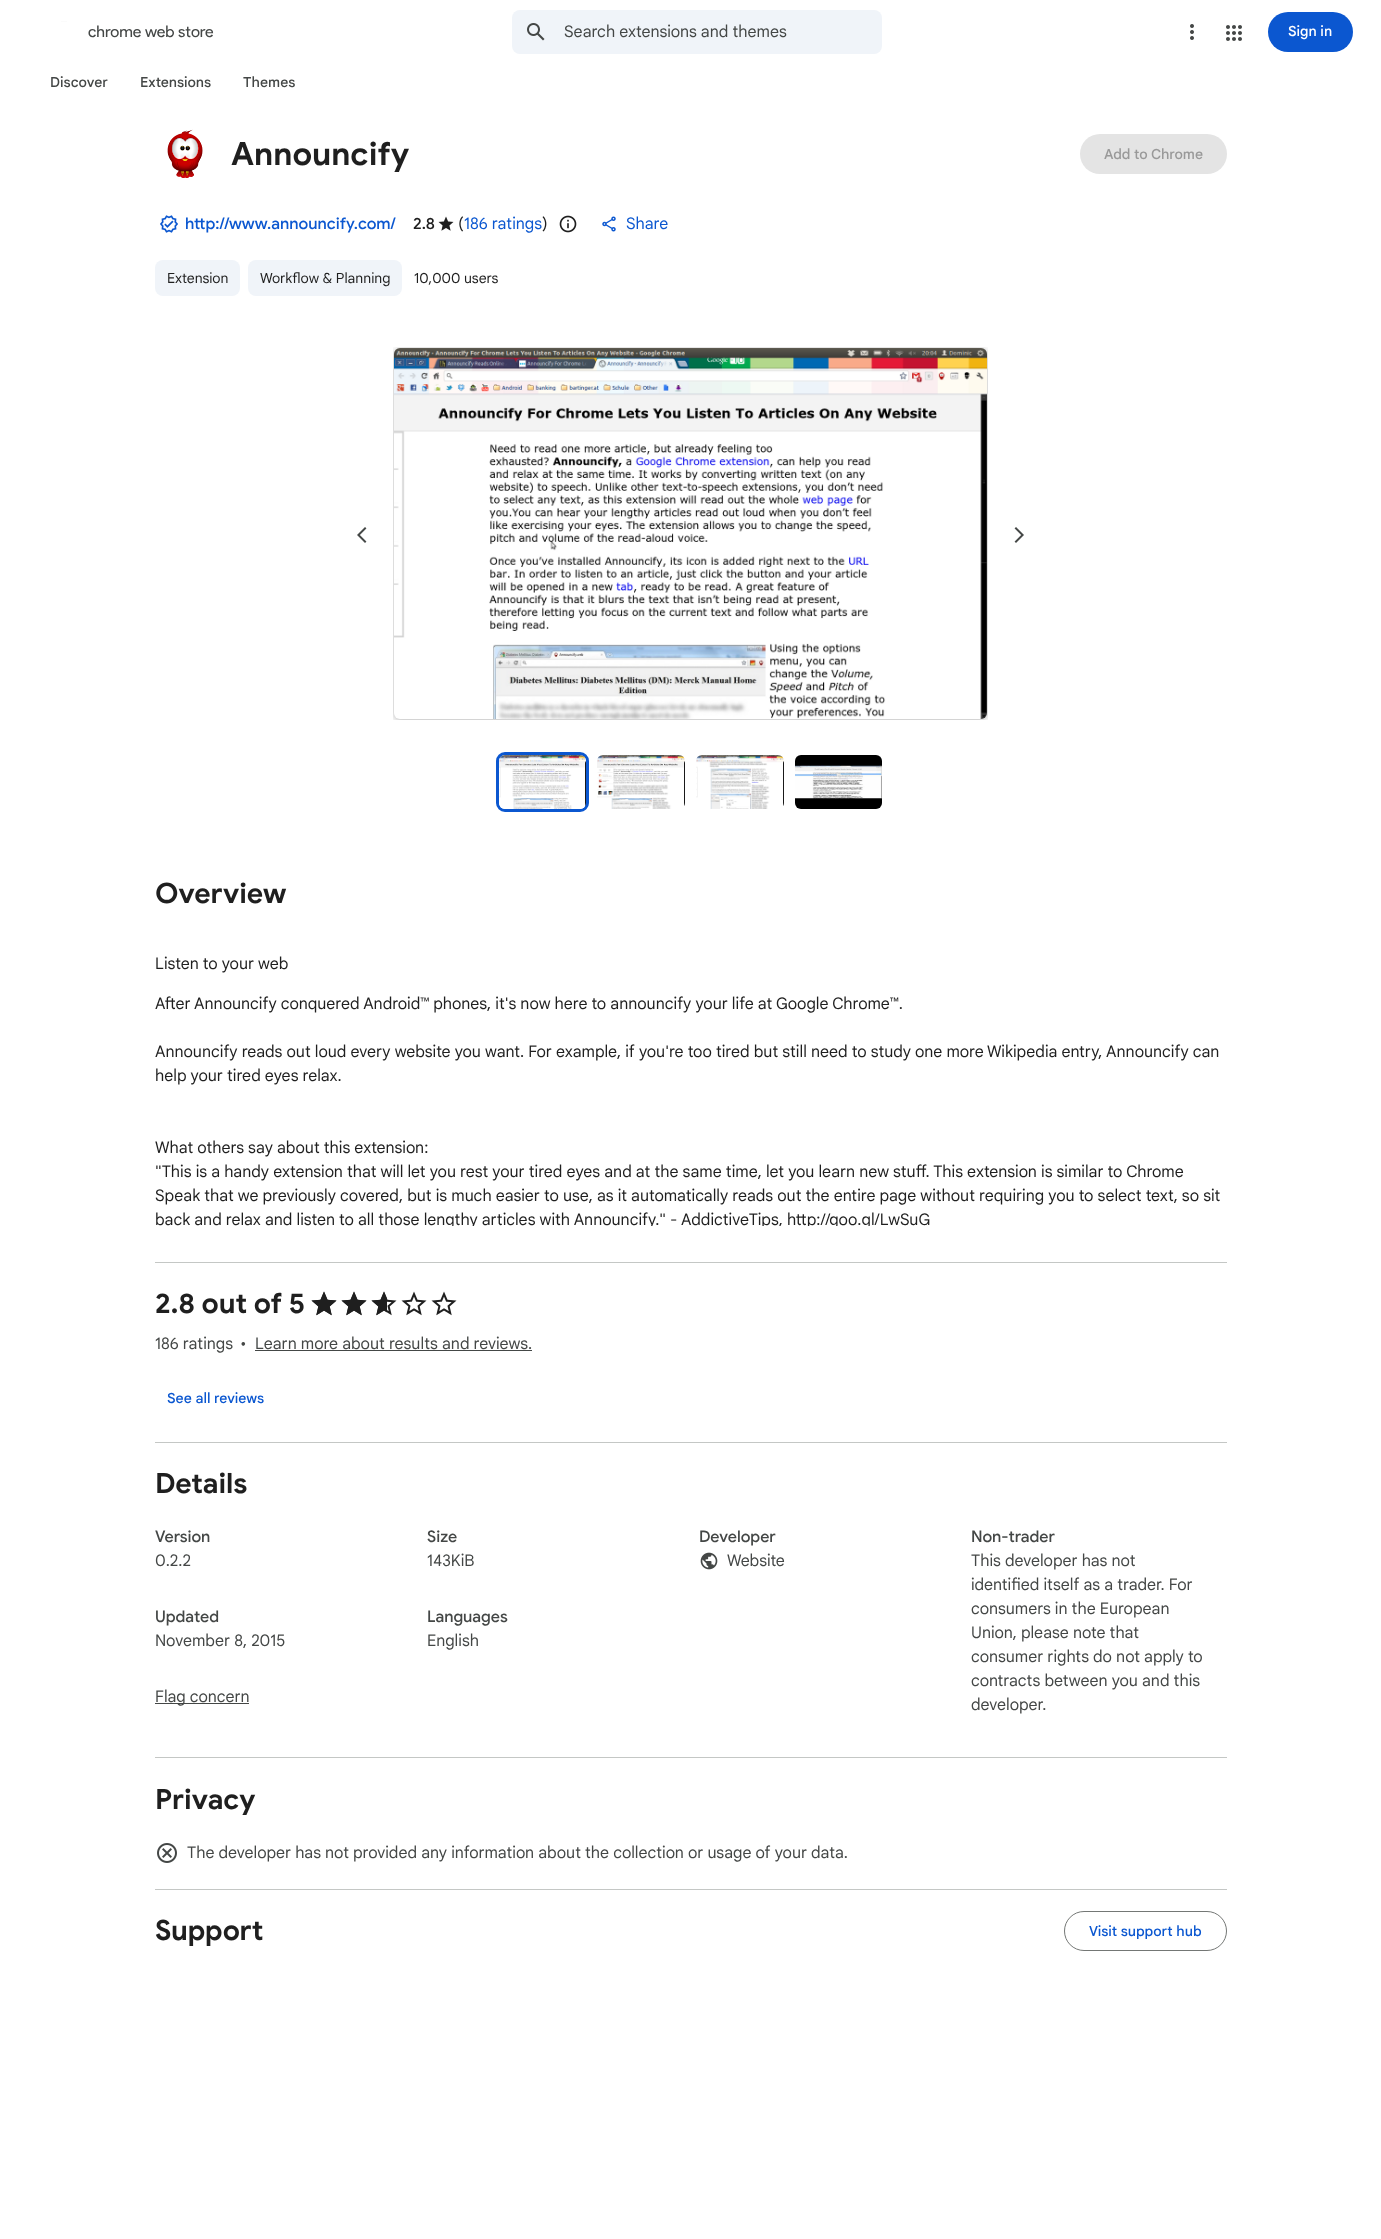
(async () => {
    const canvas = document.querySelector("canvas");
    canvas.width = 1381;
    canvas.height = 2239;
    const context = canvas.getContext("2d");
    context.miterLimit = 4;
    context.fontKerning = "normal";
    function write(s, x, y, font, color) {
        context.font = font;
        context.fillStyle = color;
        context.fillText(s, x, y);
    }
    function block(x, y, w, h, color) {
        context.fillStyle = color;
        context.fillRect(x, y, w, h);
    }
    function card(x, y, w, h, r, color) {
        context.fillStyle = color;
        context.beginPath();
        context.roundRect(x, y, w, h, r);
        context.fill();
    }
    async function photo(src, x, y, w, h) {
        const img = new Image();
        img.src = src;
        await img.decode();
        context.drawImage(img, x, y, w, h);
    }

    block(0, 0, 1381, 2239, "rgb(255, 255, 255)");
    await photo("media/1.png", 61, 21, 6, 1);
    write("chrome web store", 88, 37, "16px Product Sans", "rgb(68, 71, 70)");
    card(512, 10, 370, 44, 8, "rgb(240, 244, 249)");
    await photo("media/2.png", 527, 23, 18, 18);
    write("Search extensions and themes", 564, 37, "16px Google Sans", "rgb(68, 71, 70)");
    await photo("media/3.png", 1190, 24, 4, 16);
    await photo("media/4.png", 1226, 25, 16, 16);
    card(1268, 12, 85, 40, 20, "rgb(11, 87, 208)");
    write("Sign in", 1288, 36, "500 14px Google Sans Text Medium", "rgb(255, 255, 255)");
    write("Discover", 50, 87, "500 14px Google Sans Text Medium", "rgb(68, 71, 70)");
    write("Extensions", 140, 87, "500 14px Google Sans Text Medium", "rgb(68, 71, 70)");
    write("Themes", 243, 87, "500 14px Google Sans Text Medium", "rgb(68, 71, 70)");
    await photo("media/5.png", 167, 129, 36, 49);
    write("Announcify", 231, 165, "bold 32px Google Sans", "rgb(31, 31, 31)");
    card(1080, 134, 147, 40, 20, "rgb(228, 228, 228)");
    write("Add to Chrome", 1104, 159, "500 14px Google Sans Text Medium", "rgb(153, 153, 153)");
    await photo("media/6.png", 160, 215, 18, 18);
    write("http://www.announcify.com/", 185, 229, "500 16px Google Sans", "rgb(11, 87, 208)");
    write("2.8", 413, 229, "500 16px Google Sans", "rgb(31, 31, 31)");
    await photo("media/7.png", 438, 216, 16, 15);
    write("(", 458, 229, "16px Google Sans", "rgb(31, 31, 31)");
    write("186 ratings", 464, 229, "16px Google Sans", "rgb(11, 87, 208)");
    write(")", 542, 229, "16px Google Sans", "rgb(31, 31, 31)");
    await photo("media/8.png", 559, 215, 18, 18);
    await photo("media/9.png", 602, 216, 14, 16);
    write("Share", 626, 229, "16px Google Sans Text", "rgb(11, 87, 208)");
    card(155, 260, 85, 36, 8, "rgb(240, 244, 249)");
    write("Extension", 167, 283, "14px Google Sans", "rgb(31, 31, 31)");
    card(248, 260, 154, 36, 8, "rgb(240, 244, 249)");
    write("Workflow & Planning", 260, 283, "14px Google Sans", "rgb(31, 31, 31)");
    write("10,000 users", 414, 283, "14px Google Sans", "rgb(31, 31, 31)");
    await photo("media/10.png", 357, 527, 10, 16);
    await photo("media/11.png", 393, 347, 595, 373);
    await photo("media/12.png", 1014, 527, 10, 16);
    context.beginPath();
    context.roundRect(497.5, 753.5, 90, 57, 7.5);
    context.strokeStyle = "rgb(11, 87, 208)";
    context.lineWidth = 3;
    context.stroke();
    await photo("media/13.png", 499, 755, 87, 54);
    await photo("media/14.png", 597, 755, 88, 54);
    await photo("media/15.png", 696, 755, 88, 54);
    await photo("media/16.png", 795, 755, 87, 54);
    block(155, 1262, 1072, 1, "rgb(196, 199, 197)");
    write("Overview", 155, 903, "bold 28px Google Sans", "rgb(31, 31, 31)");
    write("Listen to your web", 155, 969, "16px Google Sans", "rgb(31, 31, 31)");
    write("After Announcify conquered Android™ phones, it's now here to announcify your life at Google Chrome™.", 155, 1009, "16px Google Sans", "rgb(31, 31, 31)");
    write("Announcify reads out loud every website you want. For example, if you're too tired but still need to study one more Wikipedia entry, Announcify can", 155, 1057, "16px Google Sans", "rgb(31, 31, 31)");
    write("help your tired eyes relax.", 155, 1081, "16px Google Sans", "rgb(31, 31, 31)");
    write("What others say about this extension:", 155, 1153, "16px Google Sans", "rgb(31, 31, 31)");
    write("\"This is a handy extension that will let you rest your tired eyes and at the same time, let you learn new stuff. This extension is similar to Chrome", 155, 1177, "16px Google Sans", "rgb(31, 31, 31)");
    write("Speak that we previously covered, but is much easier to use, as it automatically reads out the entire page without requiring you to select text, so sit", 155, 1201, "16px Google Sans", "rgb(31, 31, 31)");
    context.save();
    context.beginPath();
    context.rect(155, 936, 1072, 290);
    context.clip();
    write("back and relax and listen to all those lengthy articles with Announcify.\" - AddictiveTips, http://goo.gl/LwSuG", 155, 1225, "16px Google Sans", "rgb(31, 31, 31)");
    context.restore();
    block(155, 1442, 1072, 1, "rgb(196, 199, 197)");
    write("2.8 out of 5", 155, 1313, "bold 28px Google Sans", "rgb(31, 31, 31)");
    await photo("media/17.png", 311, 1291, 26, 25);
    await photo("media/17.png", 341, 1291, 26, 25);
    await photo("media/17.png", 371, 1291, 26, 25);
    await photo("media/17.png", 401, 1291, 26, 25);
    await photo("media/17.png", 431, 1291, 26, 25);
    await photo("media/18.png", 311, 1291, 26, 25);
    await photo("media/18.png", 341, 1291, 26, 25);
    await photo("media/19.png", 371, 1291, 16, 25);
    write("186 ratings", 155, 1349, "16px Google Sans", "rgb(68, 71, 70)");
    write("•", 240, 1349, "16px Google Sans", "rgb(68, 71, 70)");
    write("Learn more about results and reviews.", 255, 1349, "16px Google Sans", "rgb(68, 71, 70)");
    block(255, 1350, 277, 1, "rgb(68, 71, 70)");
    write("See all reviews", 167, 1403, "500 14px Google Sans Text Medium", "rgb(11, 87, 208)");
    block(155, 1757, 1072, 1, "rgb(196, 199, 197)");
    write("Details", 155, 1493, "bold 28px Google Sans", "rgb(31, 31, 31)");
    write("Version", 155, 1542, "500 16px Google Sans", "rgb(68, 71, 70)");
    write("0.2.2", 155, 1566, "16px Google Sans", "rgb(68, 71, 70)");
    write("Size", 427, 1542, "500 16px Google Sans", "rgb(68, 71, 70)");
    write("143KiB", 427, 1566, "16px Google Sans", "rgb(68, 71, 70)");
    write("Developer", 699, 1542, "500 16px Google Sans", "rgb(68, 71, 70)");
    await photo("media/20.png", 700, 1552, 18, 18);
    write("Website", 727, 1566, "16px Google Sans", "rgb(68, 71, 70)");
    write("Non-trader", 971, 1542, "500 16px Google Sans", "rgb(68, 71, 70)");
    write("This developer has not", 971, 1566, "16px Google Sans", "rgb(68, 71, 70)");
    write("identified itself as a trader. For", 971, 1590, "16px Google Sans", "rgb(68, 71, 70)");
    write("consumers in the European", 971, 1614, "16px Google Sans", "rgb(68, 71, 70)");
    write("Union, please note that", 971, 1638, "16px Google Sans", "rgb(68, 71, 70)");
    write("consumer rights do not apply to", 971, 1662, "16px Google Sans", "rgb(68, 71, 70)");
    write("contracts between you and this", 971, 1686, "16px Google Sans", "rgb(68, 71, 70)");
    write("developer.", 971, 1710, "16px Google Sans", "rgb(68, 71, 70)");
    write("Updated", 155, 1622, "500 16px Google Sans", "rgb(68, 71, 70)");
    write("November 8, 2015", 155, 1646, "16px Google Sans", "rgb(68, 71, 70)");
    write("Languages", 427, 1622, "500 16px Google Sans", "rgb(68, 71, 70)");
    write("English", 427, 1646, "16px Google Sans", "rgb(68, 71, 70)");
    block(155, 1703, 94, 1, "rgb(68, 71, 70)");
    write("Flag concern", 155, 1702, "16px Google Sans", "rgb(68, 71, 70)");
    block(155, 1889, 1072, 1, "rgb(196, 199, 197)");
    write("Privacy", 155, 1809, "bold 28px Google Sans", "rgb(31, 31, 31)");
    await photo("media/21.png", 157, 1843, 20, 20);
    write("The developer has not provided any information about the collection or usage of your data.", 187, 1858, "16px Google Sans", "rgb(68, 71, 70)");
    write("Support", 155, 1940, "bold 28px Google Sans", "rgb(31, 31, 31)");
    context.beginPath();
    context.roundRect(1064.5, 1911.5, 162, 39, 19.5);
    context.strokeStyle = "rgb(116, 119, 117)";
    context.lineWidth = 1;
    context.stroke();
    write("Visit support hub", 1089, 1936, "500 14px Google Sans Text Medium", "rgb(11, 87, 208)");
})();
